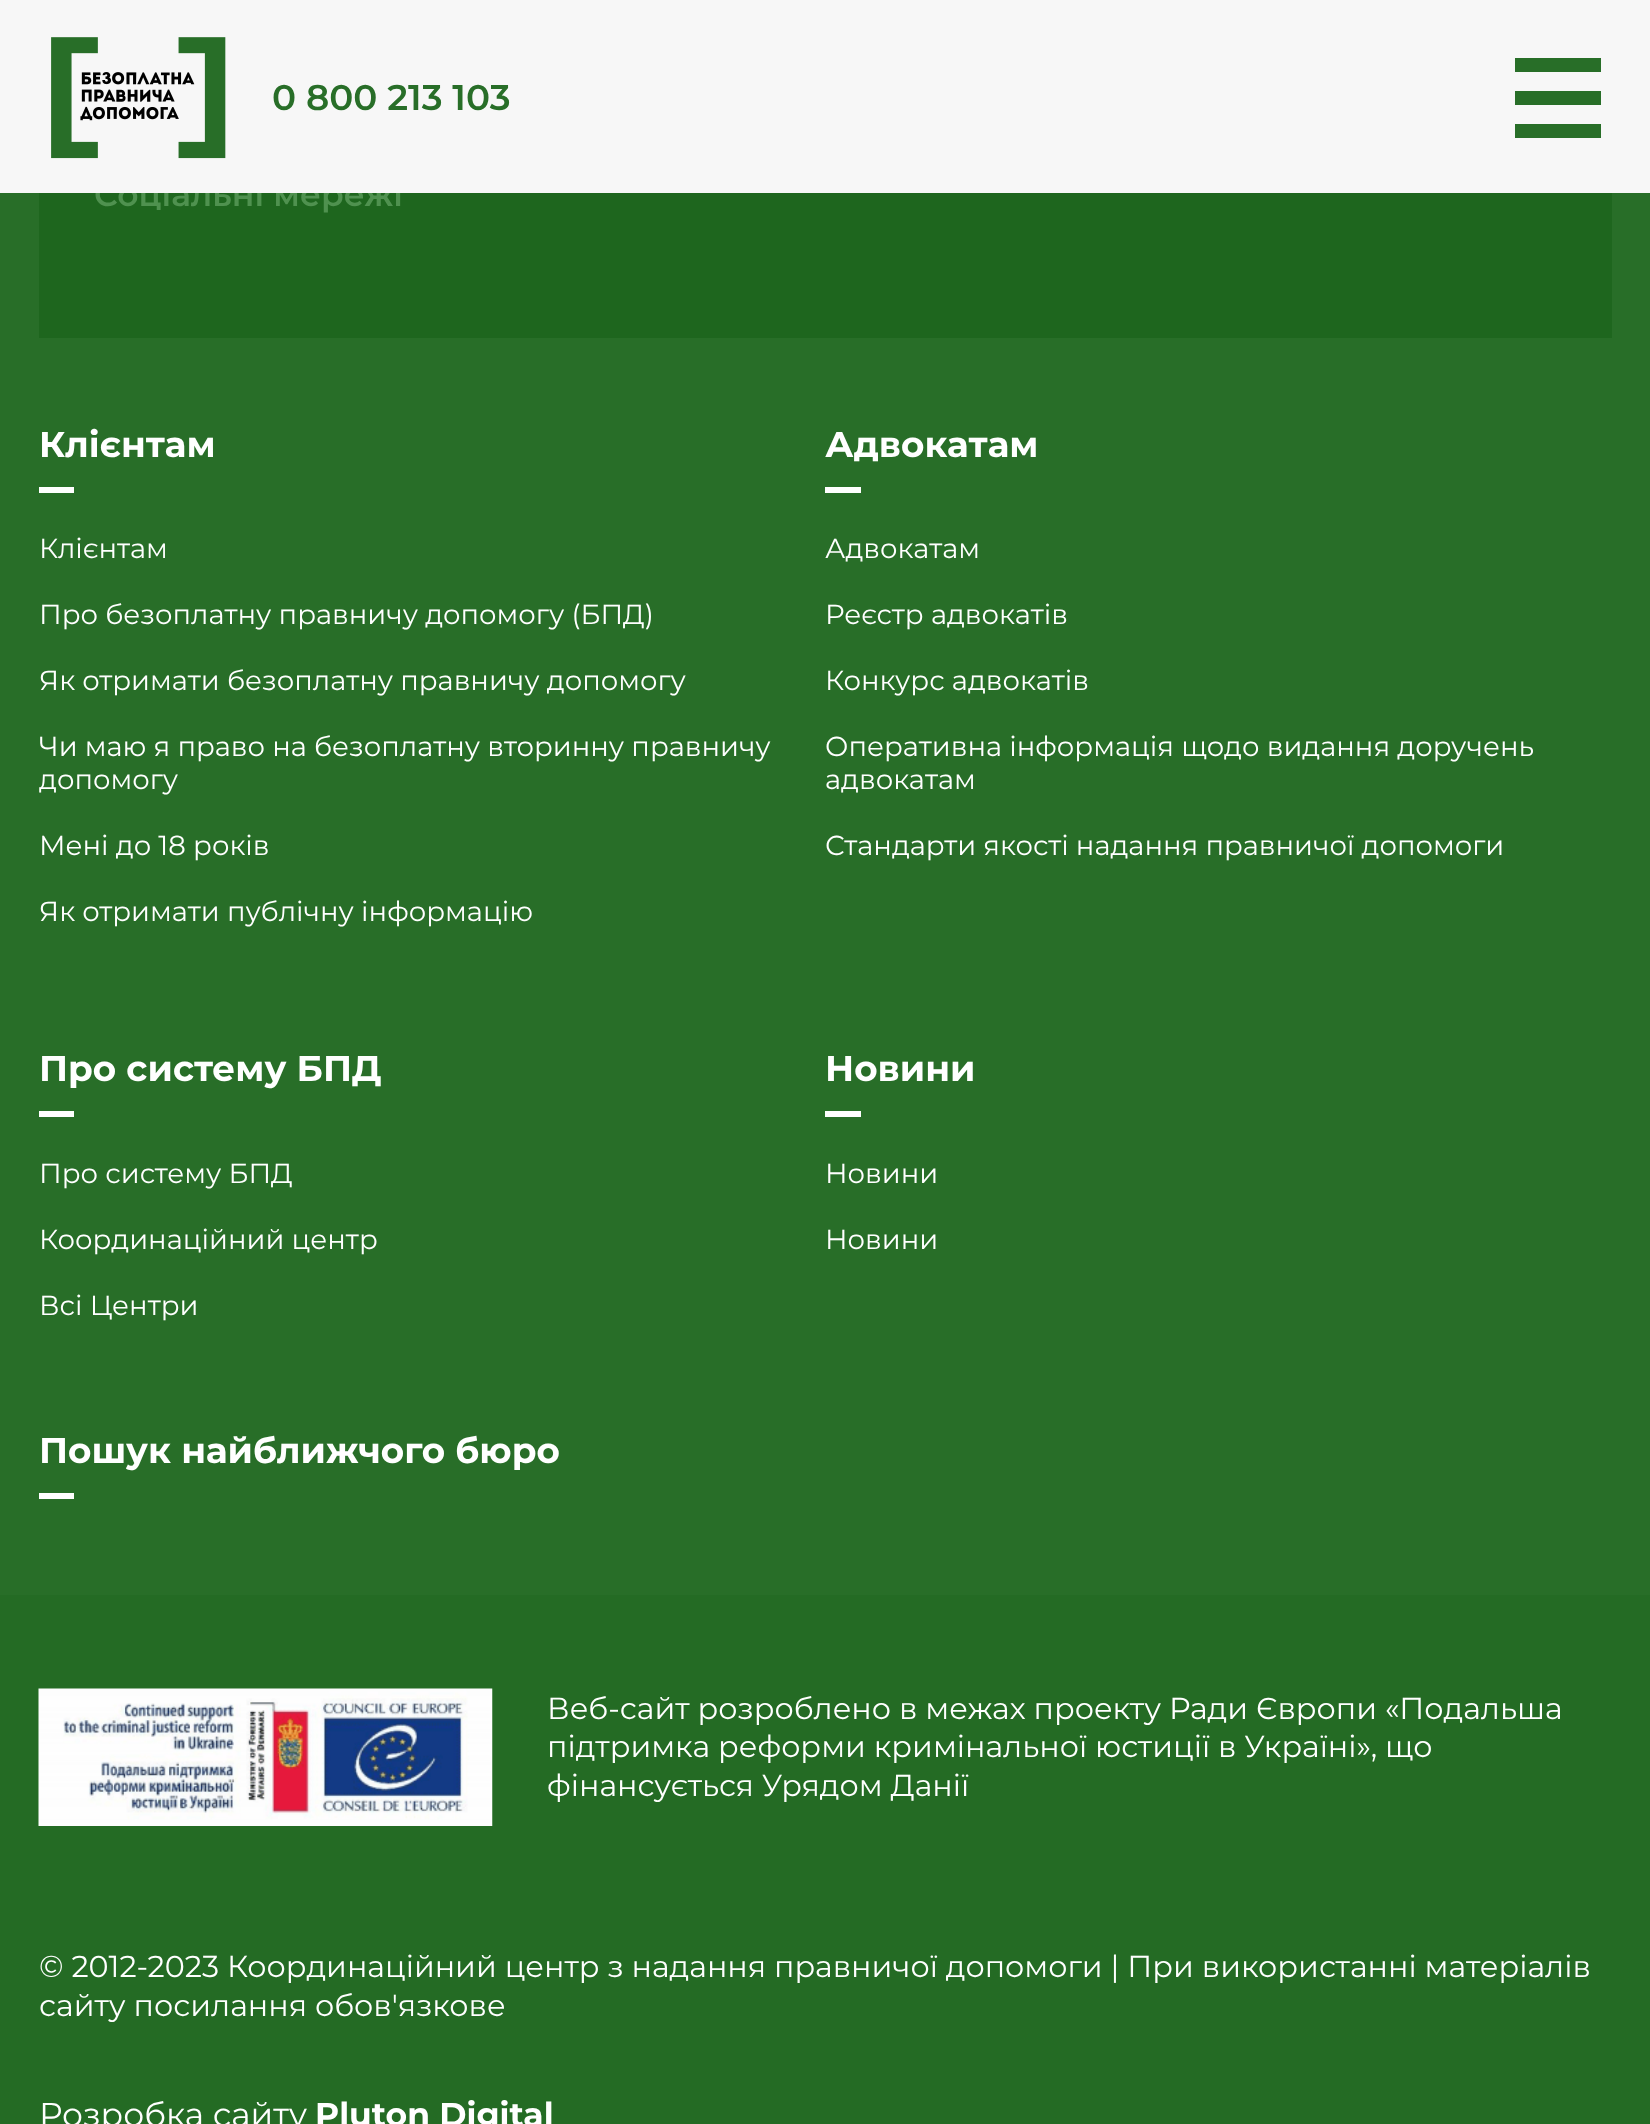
(async () => {
    const canvas = document.querySelector("canvas");
    canvas.width = 1650;
    canvas.height = 2124;
    const context = canvas.getContext("2d");
    context.miterLimit = 4;
    context.fontKerning = "normal";
    function write(s, x, y, font, color) {
        context.font = font;
        context.fillStyle = color;
        context.fillText(s, x, y);
    }
    function block(x, y, w, h, color) {
        context.fillStyle = color;
        context.fillRect(x, y, w, h);
    }
    async function photo(src, x, y, w, h) {
        const img = new Image();
        img.src = src;
        await img.decode();
        context.drawImage(img, x, y, w, h);
    }

    block(0, 0, 1650, 2124, "rgb(40, 110, 40)");
    block(39, 193, 1573, 145, "rgb(30, 102, 30)");
    write("Соціальні мережі", 94, 206, "600 33px Montserrat", "rgb(79, 145, 79)");
    block(0, 0, 1650, 193, "rgb(247, 247, 247)");
    await photo("media/1.png", 51, 37, 175, 122);
    write("0 800 213 103", 272, 110, "600 35.75px Montserrat", "rgb(40, 110, 40)");
    block(1515, 58, 86, 14, "rgb(40, 110, 40)");
    block(1515, 91, 86, 14, "rgb(40, 110, 40)");
    block(1515, 124, 86, 14, "rgb(40, 110, 40)");
    write("Клієнтам", 39, 457, "bold 35.75px Montserrat", "rgb(255, 255, 255)");
    block(39, 487, 35, 6, "rgb(255, 255, 255)");
    write("Клієнтам", 39, 558, "27.5px Montserrat", "rgb(255, 255, 255)");
    write("Про безоплатну правничу допомогу (БПД)", 39, 624, "27.5px Montserrat", "rgb(255, 255, 255)");
    write("Як отримати безоплатну правничу допомогу", 39, 690, "27.5px Montserrat", "rgb(255, 255, 255)");
    write("Чи маю я право на безоплатну вторинну правничу", 39, 756, "27.5px Montserrat", "rgb(255, 255, 255)");
    write("допомогу", 39, 789, "27.5px Montserrat", "rgb(255, 255, 255)");
    write("Мені до 18 років", 39, 855, "27.5px Montserrat", "rgb(255, 255, 255)");
    write("Як отримати публічну інформацію", 39, 921, "27.5px Montserrat", "rgb(255, 255, 255)");
    write("Адвокатам", 825, 457, "bold 35.75px Montserrat", "rgb(255, 255, 255)");
    block(825, 487, 36, 6, "rgb(255, 255, 255)");
    write("Адвокатам", 825, 558, "27.5px Montserrat", "rgb(255, 255, 255)");
    write("Реєстр адвокатів", 825, 624, "27.5px Montserrat", "rgb(255, 255, 255)");
    write("Конкурс адвокатів", 825, 690, "27.5px Montserrat", "rgb(255, 255, 255)");
    write("Оперативна інформація щодо видання доручень", 825, 756, "27.5px Montserrat", "rgb(255, 255, 255)");
    write("адвокатам", 825, 789, "27.5px Montserrat", "rgb(255, 255, 255)");
    write("Стандарти якості надання правничої допомоги", 825, 855, "27.5px Montserrat", "rgb(255, 255, 255)");
    write("Про систему БПД", 39, 1081, "bold 35.75px Montserrat", "rgb(255, 255, 255)");
    block(39, 1111, 35, 6, "rgb(255, 255, 255)");
    write("Про систему БПД", 39, 1183, "27.5px Montserrat", "rgb(255, 255, 255)");
    write("Координаційний центр", 39, 1249, "27.5px Montserrat", "rgb(255, 255, 255)");
    write("Всі Центри", 39, 1315, "27.5px Montserrat", "rgb(255, 255, 255)");
    write("Новини", 825, 1081, "bold 35.75px Montserrat", "rgb(255, 255, 255)");
    block(825, 1111, 36, 6, "rgb(255, 255, 255)");
    write("Новини", 825, 1183, "27.5px Montserrat", "rgb(255, 255, 255)");
    write("Новини", 825, 1249, "27.5px Montserrat", "rgb(255, 255, 255)");
    write("Пошук найближчого бюро", 39, 1463, "bold 35.75px Montserrat", "rgb(255, 255, 255)");
    block(39, 1493, 35, 6, "rgb(255, 255, 255)");
    block(0, 1595, 1650, 529, "rgb(36, 107, 36)");
    await photo("media/2.png", 38, 1688, 455, 138);
    write("Веб-сайт розроблено в межах проекту Ради Європи «Подальша", 547, 1719, "30.25px Montserrat", "rgb(255, 255, 255)");
    write("підтримка реформи кримінальної юстиції в Україні», що", 547, 1757, "30.25px Montserrat", "rgb(255, 255, 255)");
    write("фінансується Урядом Данії", 547, 1796, "30.25px Montserrat", "rgb(255, 255, 255)");
    write("© 2012-2023 Координаційний центр з надання правничої допомоги | При використанні матеріалів", 39, 1977, "30.25px Montserrat", "rgb(255, 255, 255)");
    write("сайту посилання обов'язкове", 39, 2016, "30.25px Montserrat", "rgb(255, 255, 255)");
    write("Розробка сайту", 39, 2126, "33px Montserrat", "rgb(255, 255, 255)");
    write("Pluton Digital", 315, 2126, "bold 33px Montserrat", "rgb(255, 255, 255)");
})();
